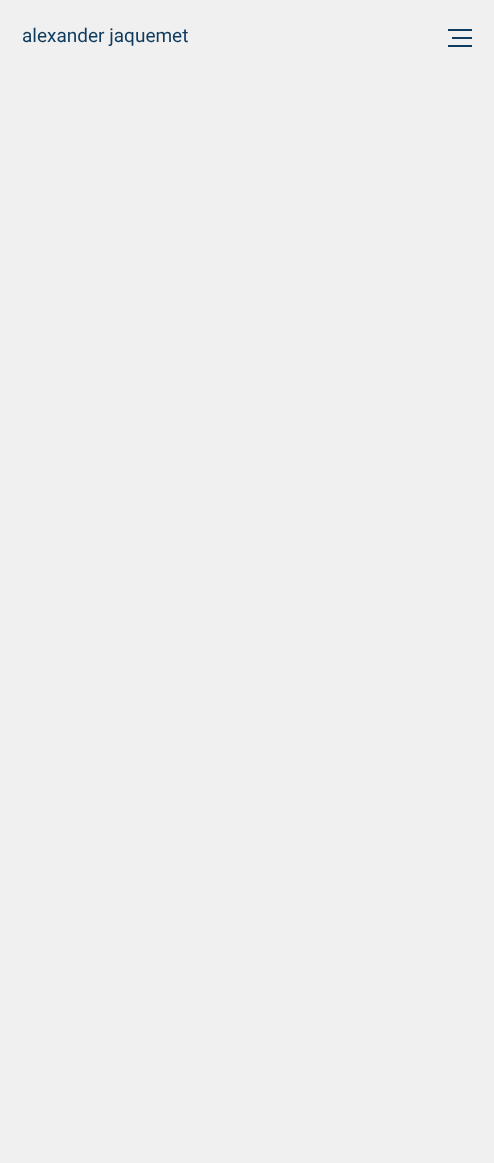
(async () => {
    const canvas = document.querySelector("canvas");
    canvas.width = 494;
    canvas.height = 1163;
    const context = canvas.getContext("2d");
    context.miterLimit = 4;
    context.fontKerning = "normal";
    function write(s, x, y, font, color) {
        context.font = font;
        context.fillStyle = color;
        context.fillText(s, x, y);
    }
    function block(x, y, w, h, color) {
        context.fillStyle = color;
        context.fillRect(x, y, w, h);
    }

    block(0, 0, 494, 1163, "rgb(240, 240, 240)");
    write("alexander jaquemet", 22, 42, "19px Roboto", "rgb(14, 59, 94)");
    block(452, 37, 20, 2, "rgb(14, 59, 94)");
    block(448, 29, 24, 2, "rgb(14, 59, 94)");
    block(448, 45, 24, 2, "rgb(14, 59, 94)");
})();
